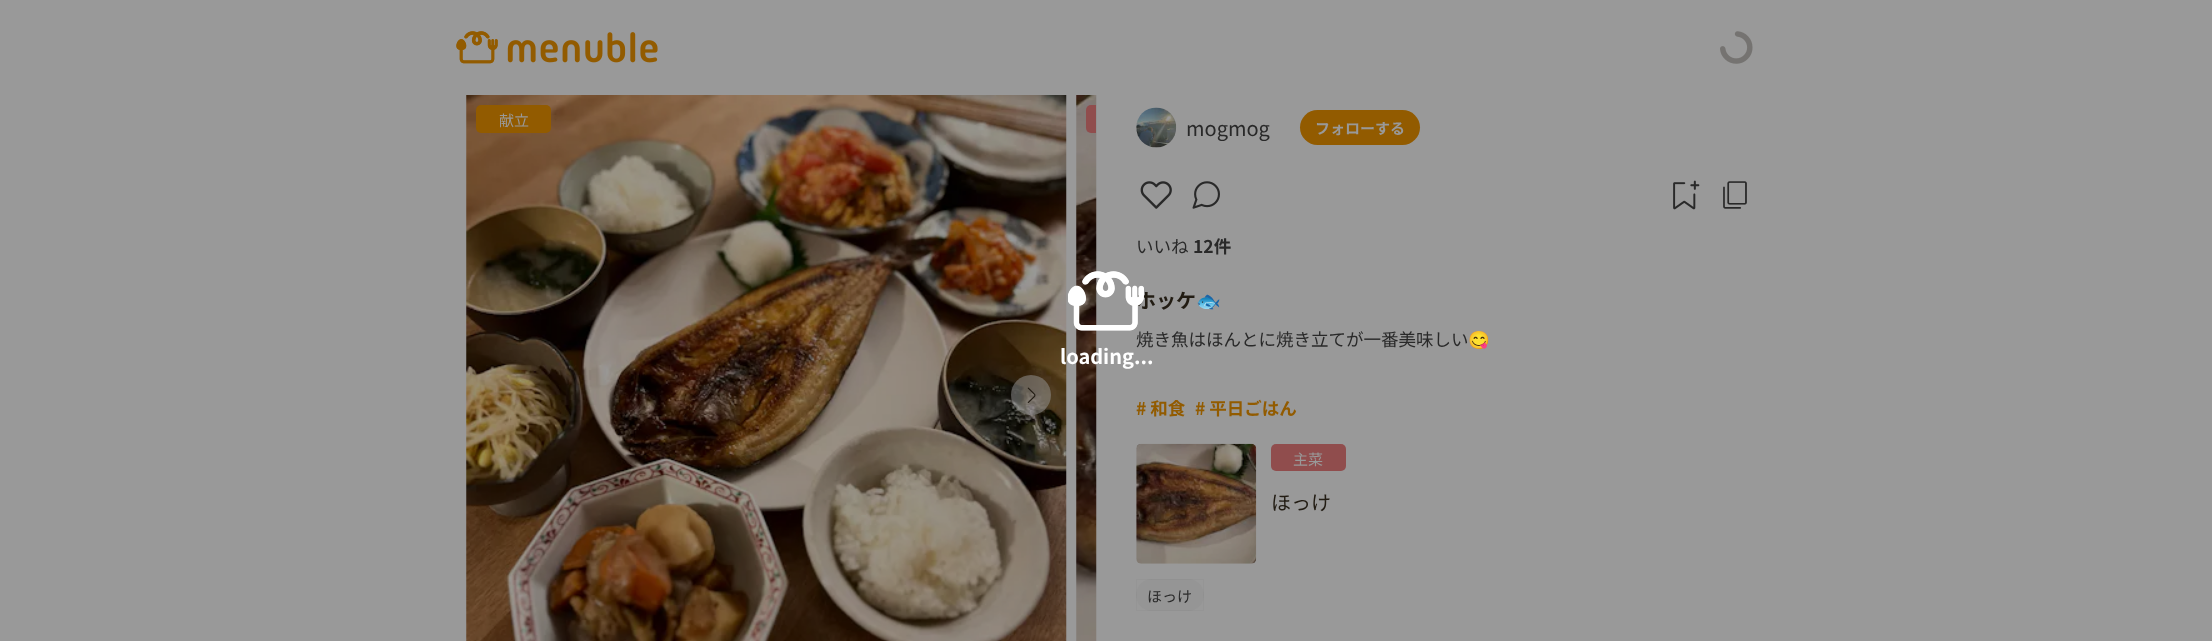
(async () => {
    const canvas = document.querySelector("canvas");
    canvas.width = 2212;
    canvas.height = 641;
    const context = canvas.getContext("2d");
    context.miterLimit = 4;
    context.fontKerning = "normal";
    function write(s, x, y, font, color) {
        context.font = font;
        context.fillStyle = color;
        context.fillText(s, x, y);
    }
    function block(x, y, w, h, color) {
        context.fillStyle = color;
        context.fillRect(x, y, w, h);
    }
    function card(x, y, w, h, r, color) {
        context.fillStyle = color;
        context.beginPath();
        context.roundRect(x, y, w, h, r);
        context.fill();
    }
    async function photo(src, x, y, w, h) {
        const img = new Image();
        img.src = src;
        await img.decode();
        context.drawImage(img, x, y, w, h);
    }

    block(0, 0, 2212, 641, "rgb(153, 153, 153)");
    await photo("media/1.png", 456, 31, 202, 33);
    await photo("media/2.png", 1720, 31, 33, 33);
    await photo("media/3.png", 466, 95, 601, 546);
    card(476, 105, 75, 28, 5, "rgb(146, 91, 0)");
    write("献立", 499, 126, "15px Noto Sans JP", "rgb(153, 153, 153)");
    await photo("media/4.png", 1076, 95, 21, 546);
    context.fillStyle = "rgb(144, 77, 77)";
    context.beginPath();
    context.roundRect(1086, 105, 10, 28, [5, 0, 0, 5]);
    context.fill();
    context.fillStyle = "rgba(153, 153, 153, 0.5)";
    context.beginPath();
    context.arc(1031, 395, 20, 0, Math.PI * 2);
    context.fill();
    await photo("media/5.png", 1027, 387, 9, 16);
    await photo("media/6.png", 1136, 107, 41, 41);
    write("mogmog", 1186, 136, "20px Noto Sans JP", "rgb(41, 41, 41)");
    card(1300, 110, 120, 35, 17.5, "rgb(146, 91, 0)");
    write("フォローする", 1315, 134, "bold 15px Noto Sans JP", "rgb(153, 153, 153)");
    await photo("media/7.png", 1140, 181, 32, 28);
    await photo("media/8.png", 1192, 181, 28, 28);
    await photo("media/9.png", 1673, 180, 27, 30);
    await photo("media/10.png", 1723, 181, 24, 28);
    write("いいね", 1136, 253, "17.5px Noto Sans JP", "rgb(41, 41, 41)");
    write("12件", 1193, 253, "bold 17.5px Noto Sans JP", "rgb(41, 41, 41)");
    write("ホッケ", 1136, 308, "bold 20px Noto Sans JP", "rgb(34, 28, 19)");
    write("🐟", 1196, 308, "bold 20px Noto Color Emoji", "rgb(34, 28, 19)");
    write("焼き魚はほんとに焼き立てが一番美味しい", 1136, 346, "17.5px Noto Sans JP", "rgb(41, 41, 41)");
    write("😋", 1468, 346, "17.5px Noto Color Emoji", "rgb(41, 41, 41)");
    write("# 和食", 1136, 415, "bold 17.5px Noto Sans JP", "rgb(146, 91, 0)");
    write("# 平日ごはん", 1195, 415, "bold 17.5px Noto Sans JP", "rgb(146, 91, 0)");
    await photo("media/11.png", 1136, 443, 121, 121);
    card(1271, 444, 75, 27, 5, "rgb(144, 77, 77)");
    write("主菜", 1293, 465, "15px Noto Sans JP", "rgb(153, 153, 153)");
    write("ほっけ", 1271, 510, "20px Noto Sans JP", "rgb(34, 28, 19)");
    card(1136, 579, 68, 32, 16, "rgb(149, 149, 149)");
    context.strokeStyle = "rgba(34, 28, 19, 0.03)";
    context.strokeRect(1136.5, 579.5, 67, 31);
    write("ほっけ", 1147, 602, "15px Noto Sans JP", "rgb(41, 41, 41)");
    await photo("media/12.png", 1068, 271, 76, 60);
    write("loading...", 1060, 364, "bold 20px Noto Sans JP", "rgb(255, 255, 255)");
})();
